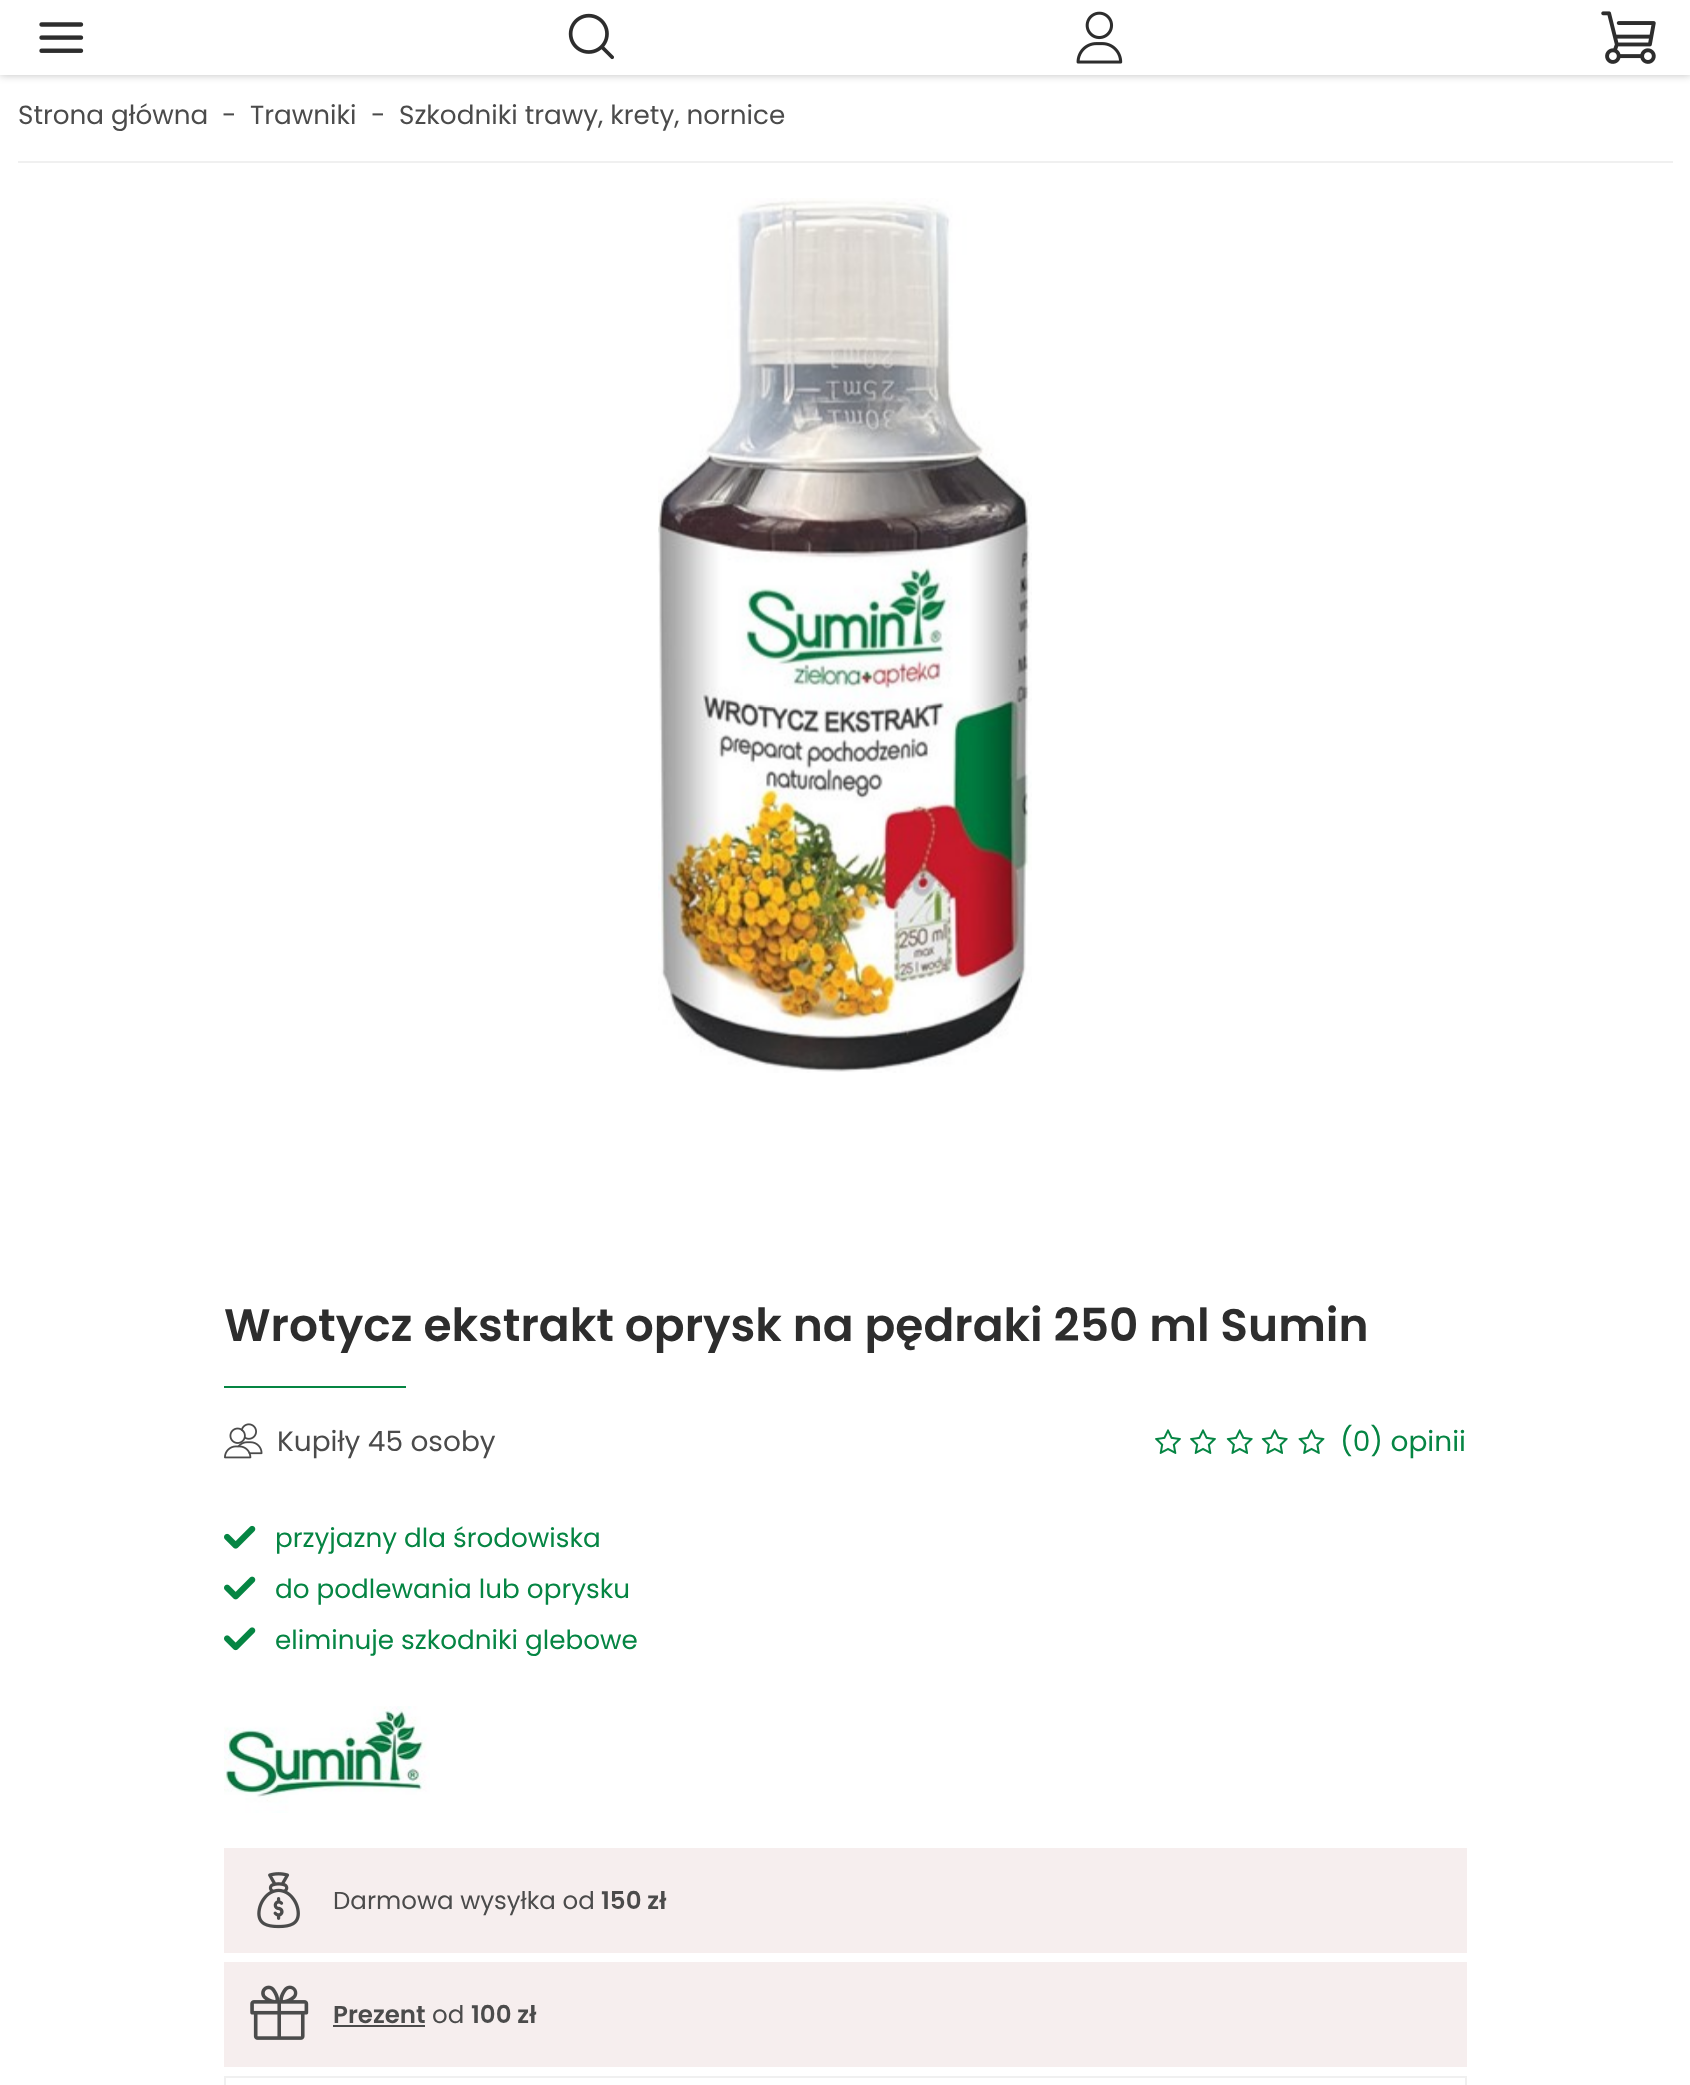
(async () => {
    const canvas = document.querySelector("canvas");
    canvas.width = 1690;
    canvas.height = 2085;
    const context = canvas.getContext("2d");
    context.miterLimit = 4;
    context.fontKerning = "normal";
    function write(s, x, y, font, color) {
        context.font = font;
        context.fillStyle = color;
        context.fillText(s, x, y);
    }
    function block(x, y, w, h, color) {
        context.fillStyle = color;
        context.fillRect(x, y, w, h);
    }
    async function photo(src, x, y, w, h) {
        const img = new Image();
        img.src = src;
        await img.decode();
        context.drawImage(img, x, y, w, h);
    }

    block(0, 0, 1690, 2085, "rgb(255, 255, 255)");
    context.fillStyle = "rgba(0, 0, 0, 0.25)";
    context.filter = "blur(4.5px)";
    context.beginPath();
    context.rect(0, 0, 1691, 75);
    context.fill();
    context.filter = "none";
    block(0, 0, 1690, 75, "rgb(255, 255, 255)");
    await photo("media/1.png", 39, 22, 45, 31);
    await photo("media/2.png", 568, 13, 46, 47);
    await photo("media/3.png", 1076, 11, 47, 53);
    await photo("media/4.png", 1601, 11, 55, 53);
    block(18, 161, 1655, 2, "rgb(240, 240, 240)");
    write("Strona główna", 18, 124, "26.25px Poppins", "rgb(75, 75, 75)");
    write("-", 222, 124, "26.25px Poppins", "rgb(75, 75, 75)");
    write("Trawniki", 250, 124, "26.25px Poppins", "rgb(75, 75, 75)");
    write("-", 371, 124, "26.25px Poppins", "rgb(75, 75, 75)");
    write("Szkodniki trawy, krety, nornice", 399, 124, "26.25px Poppins", "rgb(75, 75, 75)");
    await photo("media/5.png", 658, 198, 374, 875);
    write("Wrotycz ekstrakt oprysk na pędraki 250 ml Sumin", 224, 1341, "600 45.5px Poppins", "rgb(45, 45, 45)");
    block(224, 1386, 182, 2, "rgb(5, 133, 67)");
    await photo("media/6.png", 224, 1423, 39, 36);
    write("Kupiły 45 osoby", 277, 1451, "28px Poppins", "rgb(75, 75, 75)");
    await photo("media/7.png", 1155, 1429, 26, 25);
    await photo("media/7.png", 1190, 1429, 26, 25);
    await photo("media/8.png", 1226, 1429, 27, 25);
    await photo("media/8.png", 1261, 1429, 27, 25);
    await photo("media/9.png", 1298, 1429, 27, 25);
    write("(0) opinii", 1340, 1451, "28px Poppins", "rgb(5, 133, 67)");
    await photo("media/10.png", 224, 1525, 32, 24);
    write("przyjazny dla środowiska", 275, 1547, "26.25px Poppins", "rgb(5, 133, 67)");
    await photo("media/11.png", 224, 1576, 32, 24);
    write("do podlewania lub oprysku", 275, 1598, "26.25px Poppins", "rgb(5, 133, 67)");
    await photo("media/12.png", 224, 1627, 32, 24);
    write("eliminuje szkodniki glebowe", 275, 1649, "26.25px Poppins", "rgb(5, 133, 67)");
    await photo("media/13.png", 224, 1706, 206, 107);
    block(224, 1848, 1243, 105, "rgb(246, 238, 238)");
    await photo("media/14.png", 257, 1872, 43, 57);
    write("Darmowa wysyłka od", 333, 1909, "24.5px Poppins", "rgb(75, 75, 75)");
    write("150 zł", 601, 1909, "600 24.5px Poppins", "rgb(75, 75, 75)");
    block(224, 1962, 1243, 105, "rgb(246, 238, 238)");
    await photo("media/15.png", 250, 1985, 59, 55);
    write("Prezent", 333, 2023, "600 24.5px Poppins", "rgb(75, 75, 75)");
    block(333, 2025, 92, 2, "rgb(75, 75, 75)");
    write("od", 432, 2023, "24.5px Poppins", "rgb(75, 75, 75)");
    write("100 zł", 471, 2023, "600 24.5px Poppins", "rgb(75, 75, 75)");
    context.strokeStyle = "rgb(240, 240, 240)";
    context.lineWidth = 2;
    context.strokeRect(225, 2077, 1241, 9);
})();
